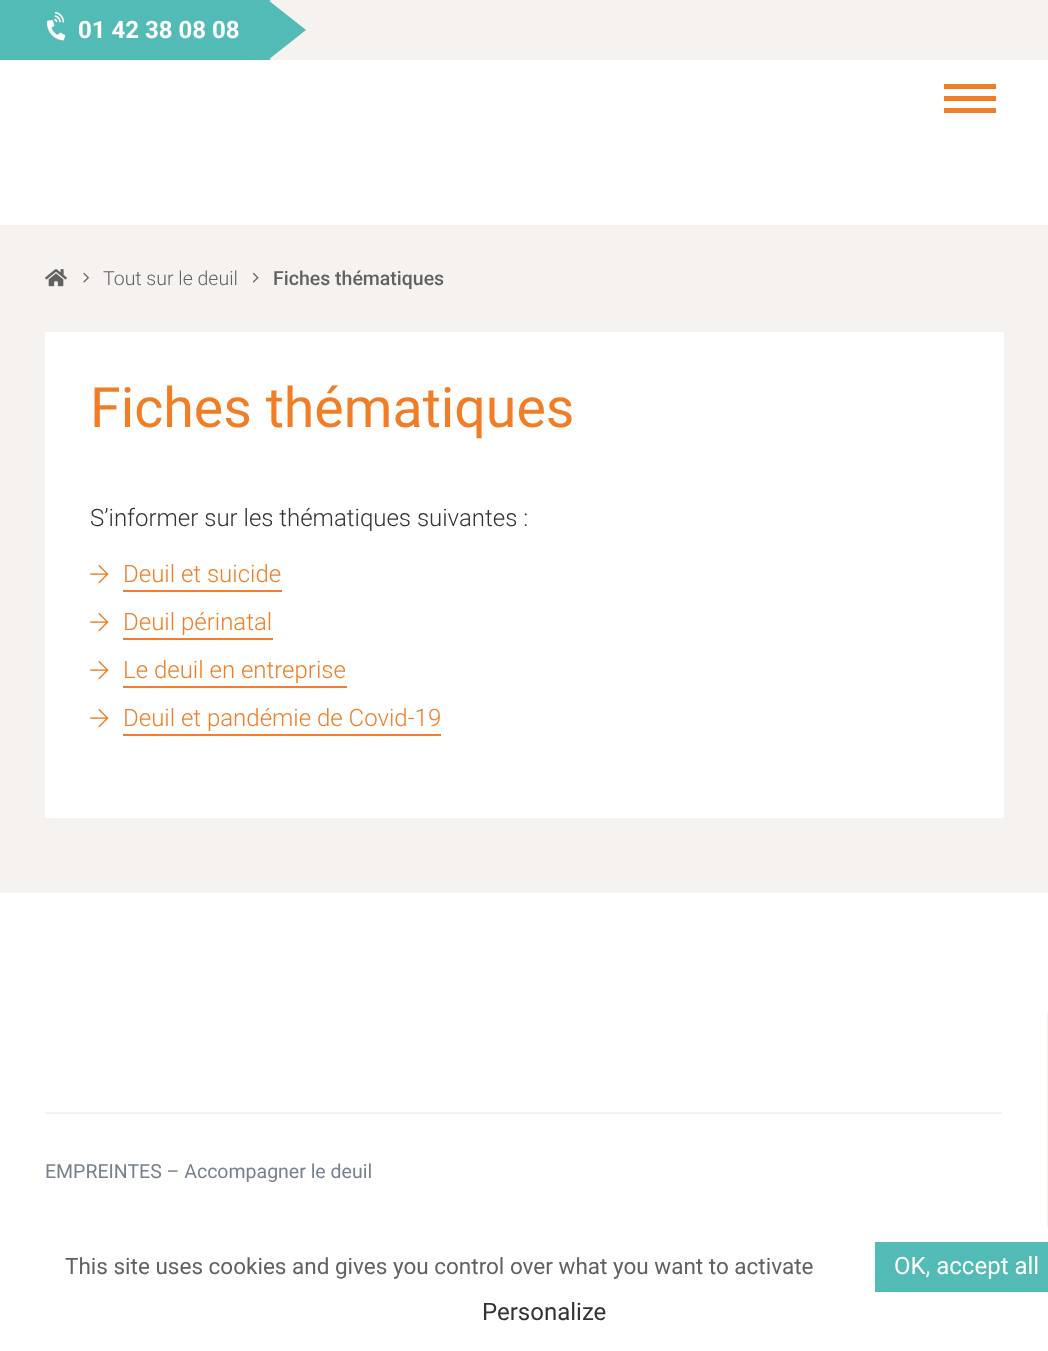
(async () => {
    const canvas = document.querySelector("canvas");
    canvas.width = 1048;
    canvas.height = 1351;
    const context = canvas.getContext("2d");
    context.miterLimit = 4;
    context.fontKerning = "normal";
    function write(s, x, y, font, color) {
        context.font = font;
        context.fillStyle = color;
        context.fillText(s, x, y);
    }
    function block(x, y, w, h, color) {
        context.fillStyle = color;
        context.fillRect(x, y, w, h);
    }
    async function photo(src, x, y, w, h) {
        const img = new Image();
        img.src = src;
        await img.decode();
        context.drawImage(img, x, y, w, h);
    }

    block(0, 0, 1048, 1351, "rgb(246, 242, 240)");
    block(0, 60, 1048, 165, "rgb(255, 255, 255)");
    block(0, 0, 270, 60, "rgb(82, 187, 181)");
    await photo("media/1.png", 47, 11, 19, 30);
    write("01 42 38 08 08", 78, 38, "bold 24px Roboto", "rgb(255, 255, 255)");
    context.fillStyle = "rgb(82, 187, 181)";
    context.beginPath();
    context.moveTo(268, 60);
    context.lineTo(268, 0);
    context.lineTo(306, 30);
    context.closePath();
    context.fill();
    block(944, 84, 52, 5, "rgb(241, 126, 38)");
    block(944, 96, 52, 5, "rgb(241, 126, 38)");
    block(944, 108, 52, 5, "rgb(241, 126, 38)");
    await photo("media/2.png", 45, 269, 22, 18);
    await photo("media/3.png", 83, 272, 6, 11);
    write("Tout sur le deuil", 103, 285, "300 19.5px Roboto", "rgb(97, 97, 97)");
    await photo("media/4.png", 252, 272, 7, 11);
    write("Fiches thématiques", 273, 285, "500 19.5px Roboto", "rgb(97, 97, 97)");
    block(45, 332, 959, 486, "rgb(255, 255, 255)");
    write("Fiches thématiques", 90, 427, "55.5px Roboto", "rgb(241, 126, 38)");
    write("S’informer sur les thématiques suivantes :", 90, 526, "300 24px Roboto", "rgb(51, 51, 51)");
    await photo("media/5.png", 90, 565, 19, 19);
    write("Deuil et suicide", 123, 582, "300 24px Roboto", "rgb(241, 126, 38)");
    block(123, 590, 159, 2, "rgb(241, 126, 38)");
    await photo("media/5.png", 90, 613, 19, 19);
    write("Deuil périnatal", 123, 630, "300 24px Roboto", "rgb(241, 126, 38)");
    block(123, 638, 150, 2, "rgb(241, 126, 38)");
    await photo("media/5.png", 90, 661, 19, 19);
    write("Le deuil en entreprise", 123, 678, "300 24px Roboto", "rgb(241, 126, 38)");
    block(123, 686, 224, 2, "rgb(241, 126, 38)");
    await photo("media/5.png", 90, 709, 19, 19);
    write("Deuil et pandémie de Covid-19", 123, 726, "300 24px Roboto", "rgb(241, 126, 38)");
    block(123, 734, 318, 2, "rgb(241, 126, 38)");
    block(0, 893, 1048, 458, "rgb(255, 255, 255)");
    block(1047, 1013, 1, 214, "rgb(246, 242, 240)");
    block(45, 1112, 957, 2, "rgb(246, 242, 240)");
    write("EMPREINTES – Accompagner le deuil", 45, 1178, "19.5px Roboto", "rgb(119, 128, 142)");
    write("This site uses cookies and gives you control over what you want to activate", 65, 1274, "22.5px Roboto", "rgb(97, 97, 97)");
    block(875, 1242, 173, 50, "rgb(82, 187, 181)");
    write("OK, accept all", 894, 1274, "24px Roboto", "rgb(255, 255, 255)");
    write("Personalize", 482, 1320, "24px Roboto", "rgb(51, 51, 51)");
})();
